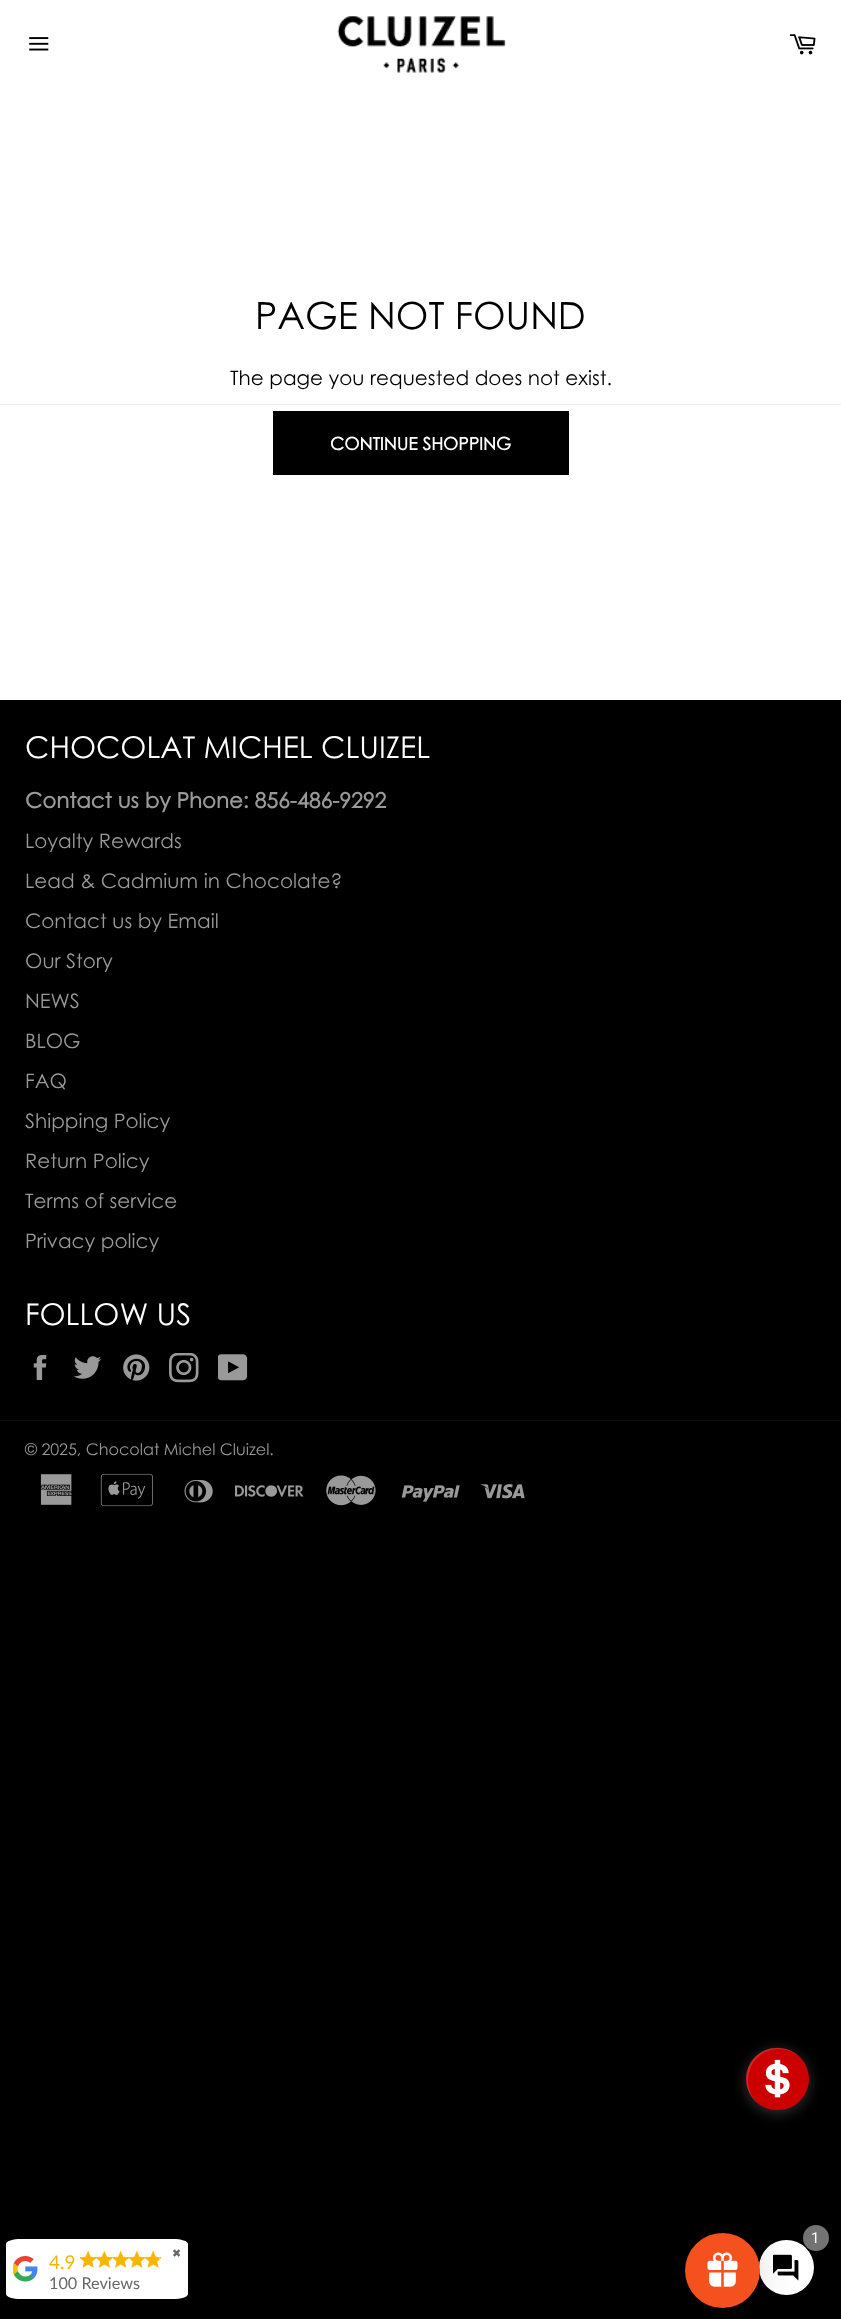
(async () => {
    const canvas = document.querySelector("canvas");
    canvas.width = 841;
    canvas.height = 2319;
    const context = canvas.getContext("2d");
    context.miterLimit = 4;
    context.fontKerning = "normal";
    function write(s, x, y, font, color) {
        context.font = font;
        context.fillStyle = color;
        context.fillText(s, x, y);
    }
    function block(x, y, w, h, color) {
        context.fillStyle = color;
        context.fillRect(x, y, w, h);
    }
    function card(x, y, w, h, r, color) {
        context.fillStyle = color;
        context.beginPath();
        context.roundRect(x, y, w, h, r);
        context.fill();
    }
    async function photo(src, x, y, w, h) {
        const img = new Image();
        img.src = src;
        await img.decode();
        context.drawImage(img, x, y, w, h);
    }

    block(0, 0, 841, 2319, "rgb(0, 0, 0)");
    block(0, 0, 841, 700, "rgb(255, 255, 255)");
    await photo("media/1.png", 29, 37, 20, 14);
    await photo("media/2.png", 337, 16, 169, 57);
    await photo("media/3.png", 789, 34, 27, 21);
    write("PAGE NOT FOUND", 255, 329, "37.5px Century Gothic", "rgb(0, 0, 0)");
    write("The page you requested does not exist.", 230, 385, "20px Century Gothic", "rgb(0, 0, 0)");
    block(0, 404, 841, 1, "rgb(238, 238, 238)");
    block(273, 411, 296, 64, "rgb(0, 0, 0)");
    write("CONTINUE SHOPPING", 330, 450, "bold 17.5px Century Gothic", "rgb(255, 255, 255)");
    write("CHOCOLAT MICHEL CLUIZEL", 25, 758, "30px Century Gothic", "rgb(255, 255, 255)");
    write("Contact us by Phone: 856-486-9292", 25, 808, "bold 21.25px Century Gothic", "rgb(153, 153, 153)");
    write("Loyalty Rewards", 25, 848, "20px Century Gothic", "rgb(153, 153, 153)");
    write("Lead & Cadmium in Chocolate?", 25, 888, "20px Century Gothic", "rgb(153, 153, 153)");
    write("Contact us by Email", 25, 928, "20px Century Gothic", "rgb(153, 153, 153)");
    write("Our Story", 25, 968, "20px Century Gothic", "rgb(153, 153, 153)");
    write("NEWS", 25, 1008, "20px Century Gothic", "rgb(153, 153, 153)");
    write("BLOG", 25, 1048, "20px Century Gothic", "rgb(153, 153, 153)");
    write("FAQ", 25, 1088, "20px Century Gothic", "rgb(153, 153, 153)");
    write("Shipping Policy", 25, 1128, "20px Century Gothic", "rgb(153, 153, 153)");
    write("Return Policy", 25, 1168, "20px Century Gothic", "rgb(153, 153, 153)");
    write("Terms of service", 25, 1208, "20px Century Gothic", "rgb(153, 153, 153)");
    write("Privacy policy", 25, 1248, "20px Century Gothic", "rgb(153, 153, 153)");
    write("FOLLOW US", 25, 1325, "30px Century Gothic", "rgb(255, 255, 255)");
    await photo("media/4.png", 33, 1355, 14, 25);
    await photo("media/5.png", 74, 1356, 28, 23);
    await photo("media/6.png", 123, 1354, 27, 27);
    await photo("media/7.png", 169, 1353, 30, 30);
    await photo("media/8.png", 218, 1354, 30, 27);
    block(0, 1420, 841, 1, "rgb(13, 13, 13)");
    write("© 2025, Chocolat Michel Cluizel.", 25, 1455, "16px Century Gothic", "rgb(153, 153, 153)");
    await photo("media/9.png", 40, 1474, 32, 31);
    await photo("media/10.png", 100, 1473, 53, 34);
    await photo("media/11.png", 184, 1480, 29, 23);
    await photo("media/12.png", 235, 1485, 69, 12);
    await photo("media/13.png", 326, 1475, 50, 31);
    await photo("media/14.png", 401, 1485, 59, 17);
    await photo("media/15.png", 480, 1484, 45, 15);
    context.fillStyle = "rgba(128, 128, 128, 0.4)";
    context.filter = "blur(7px)";
    context.beginPath();
    context.roundRect(746, 2050, 63, 63, 31.5);
    context.fill();
    context.filter = "none";
    card(746, 2048, 63, 62, 31, "rgb(204, 0, 0)");
    context.fillStyle = "rgba(255, 255, 255, 0.15)";
    context.beginPath();
    context.moveTo(779, 2049);
    context.bezierCurveTo(788, 2049, 796, 2053, 801, 2059);
    context.bezierCurveTo(790, 2045, 768, 2044, 755, 2057);
    context.bezierCurveTo(741, 2071, 744, 2096, 762, 2106);
    context.bezierCurveTo(737, 2090, 748, 2049, 779, 2049);
    context.closePath();
    context.fill();
    await photo("media/16.png", 765, 2059, 25, 39);
    context.fillStyle = "rgb(255, 255, 255)";
    context.beginPath();
    context.arc(786.5, 2267.5, 27.5, 0, Math.PI * 2);
    context.fill();
    context.fillStyle = "rgb(115, 115, 115)";
    context.beginPath();
    context.arc(816, 2238, 13, 0, Math.PI * 2);
    context.fill();
    await photo("media/18.png", 773, 2254, 26, 27);
    context.fillStyle = "rgba(0, 0, 0, 0.15)";
    context.filter = "blur(19px)";
    context.beginPath();
    context.roundRect(685, 2235, 75, 75, 37.5);
    context.fill();
    context.filter = "none";
    context.fillStyle = "rgb(244, 81, 30)";
    context.beginPath();
    context.arc(722.5, 2270.5, 37.5, 0, Math.PI * 2);
    context.fill();
    await photo("media/17.png", 707, 2252, 31, 35);
    write("1", 811, 2243, "15px Roboto", "rgb(255, 255, 255)");
    context.beginPath();
    context.moveTo(21, 2239);
    context.lineTo(173, 2239);
    context.bezierCurveTo(181, 2239, 188, 2241, 188, 2244);
    context.lineTo(188, 2294);
    context.bezierCurveTo(188, 2297, 181, 2299, 173, 2299);
    context.lineTo(21, 2299);
    context.bezierCurveTo(13, 2299, 6, 2297, 6, 2294);
    context.lineTo(6, 2244);
    context.bezierCurveTo(6, 2241, 13, 2239, 21, 2239);
    context.closePath();
    context.fill();
    write("✖", 172, 2257, "11px DejaVu Sans", "rgb(103, 103, 103)");
    await photo("media/19.png", 13, 2256, 25, 26);
    write("4.9", 49, 2269, "19px Lato", "rgb(249, 180, 3)");
    await photo("media/20.png", 80, 2251, 16, 17);
    await photo("media/21.png", 96, 2251, 17, 17);
    await photo("media/22.png", 113, 2251, 16, 17);
    await photo("media/23.png", 129, 2251, 16, 17);
    await photo("media/24.png", 145, 2251, 16, 17);
    write("100 Reviews", 49, 2289, "16.25px Lato", "rgb(103, 103, 103)");
})();
